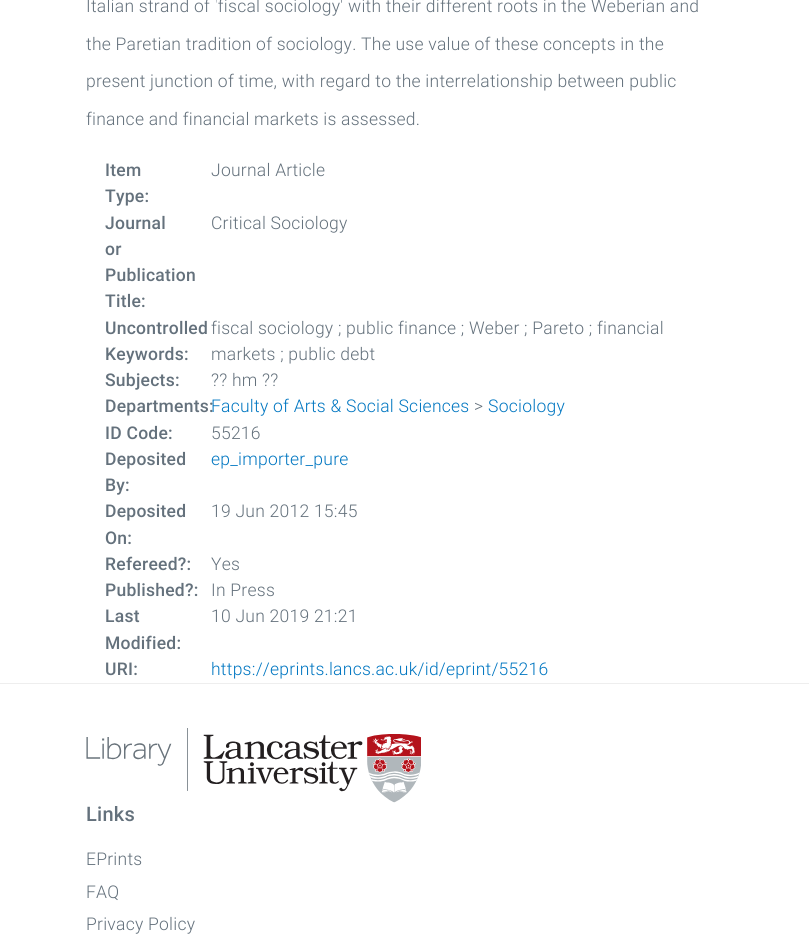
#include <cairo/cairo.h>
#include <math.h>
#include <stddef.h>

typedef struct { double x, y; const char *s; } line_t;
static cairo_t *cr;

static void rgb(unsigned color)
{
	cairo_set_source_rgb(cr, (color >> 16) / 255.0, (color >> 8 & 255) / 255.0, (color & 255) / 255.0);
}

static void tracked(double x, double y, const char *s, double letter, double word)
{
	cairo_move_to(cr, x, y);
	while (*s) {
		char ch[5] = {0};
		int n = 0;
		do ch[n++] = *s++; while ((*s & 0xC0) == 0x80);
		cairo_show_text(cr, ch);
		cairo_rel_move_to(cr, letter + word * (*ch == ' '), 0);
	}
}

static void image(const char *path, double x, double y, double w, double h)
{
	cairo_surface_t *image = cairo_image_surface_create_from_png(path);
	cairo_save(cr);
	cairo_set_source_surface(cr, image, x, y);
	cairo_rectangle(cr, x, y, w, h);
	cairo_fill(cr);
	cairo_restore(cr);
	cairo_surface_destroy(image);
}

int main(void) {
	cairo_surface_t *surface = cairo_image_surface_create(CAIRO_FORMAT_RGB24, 809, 934);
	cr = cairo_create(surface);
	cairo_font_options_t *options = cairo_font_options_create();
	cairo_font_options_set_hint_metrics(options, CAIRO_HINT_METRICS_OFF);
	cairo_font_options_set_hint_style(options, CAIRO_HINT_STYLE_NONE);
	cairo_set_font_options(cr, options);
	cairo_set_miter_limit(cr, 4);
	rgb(0xffffff);
	cairo_paint(cr);
	rgb(0xeeeeee);
	cairo_rectangle(cr, 0, 683, 809, 1);
	cairo_fill(cr);
	image("img/1.png", 86, 728, 335, 75);
	cairo_select_font_face(cr, "Roboto Light", CAIRO_FONT_SLANT_NORMAL, CAIRO_FONT_WEIGHT_NORMAL);
	cairo_set_font_size(cr, 17.5);
	rgb(0x64717c);
	{
		static const line_t items[] = {
			{86, 12, "Italian strand of 'fiscal sociology' with their different roots in the Weberian and"},
			{86, 50, "the Paretian tradition of sociology. The use value of these concepts in the"},
			{86, 87, "present junction of time, with regard to the interrelationship between public"},
			{86, 125, "finance and financial markets is assessed."},
		};
		for (size_t i = 0; i < sizeof items / sizeof *items; i++) {
			tracked(items[i].x, items[i].y, items[i].s, 0.25, 0);
		}
	}
	cairo_select_font_face(cr, "Roboto Medium", CAIRO_FONT_SLANT_NORMAL, CAIRO_FONT_WEIGHT_NORMAL);
	tracked(105, 176, "Item", 0.25, 0);
	tracked(105, 202, "Type:", 0.25, 0);
	cairo_select_font_face(cr, "Roboto Light", CAIRO_FONT_SLANT_NORMAL, CAIRO_FONT_WEIGHT_NORMAL);
	tracked(211, 176, "Journal Article", 0.25, 0);
	cairo_select_font_face(cr, "Roboto Medium", CAIRO_FONT_SLANT_NORMAL, CAIRO_FONT_WEIGHT_NORMAL);
	{
		static const line_t items[] = {
			{105, 229, "Journal"},
			{105, 255, "or"},
			{105, 281, "Publication"},
			{105, 307, "Title:"},
		};
		for (size_t i = 0; i < sizeof items / sizeof *items; i++) {
			tracked(items[i].x, items[i].y, items[i].s, 0.25, 0);
		}
	}
	cairo_select_font_face(cr, "Roboto Light", CAIRO_FONT_SLANT_NORMAL, CAIRO_FONT_WEIGHT_NORMAL);
	tracked(211, 229, "Critical Sociology", 0.25, 0);
	cairo_select_font_face(cr, "Roboto Medium", CAIRO_FONT_SLANT_NORMAL, CAIRO_FONT_WEIGHT_NORMAL);
	tracked(105, 334, "Uncontrolled", 0.25, 0);
	tracked(105, 360, "Keywords:", 0.25, 0);
	cairo_select_font_face(cr, "Roboto Light", CAIRO_FONT_SLANT_NORMAL, CAIRO_FONT_WEIGHT_NORMAL);
	tracked(211, 334, "fiscal sociology ; public finance ; Weber ; Pareto ; financial", 0.25, 0);
	tracked(211, 360, "markets ; public debt", 0.25, 0);
	cairo_select_font_face(cr, "Roboto Medium", CAIRO_FONT_SLANT_NORMAL, CAIRO_FONT_WEIGHT_NORMAL);
	tracked(105, 386, "Subjects:", 0.25, 0);
	cairo_select_font_face(cr, "Roboto Light", CAIRO_FONT_SLANT_NORMAL, CAIRO_FONT_WEIGHT_NORMAL);
	tracked(211, 386, "?\077 hm ?\077", 0.25, 0);
	cairo_select_font_face(cr, "Roboto Medium", CAIRO_FONT_SLANT_NORMAL, CAIRO_FONT_WEIGHT_NORMAL);
	tracked(105, 412, "Departments:", 0.25, 0);
	cairo_select_font_face(cr, "Roboto Light", CAIRO_FONT_SLANT_NORMAL, CAIRO_FONT_WEIGHT_NORMAL);
	rgb(0x0076c1);
	tracked(211, 412, "Faculty of Arts & Social Sciences", 0.25, 0);
	rgb(0x64717c);
	tracked(474, 412, ">", 0.25, 0);
	rgb(0x0076c1);
	tracked(488, 412, "Sociology", 0.25, 0);
	cairo_select_font_face(cr, "Roboto Medium", CAIRO_FONT_SLANT_NORMAL, CAIRO_FONT_WEIGHT_NORMAL);
	rgb(0x64717c);
	tracked(105, 439, "ID Code:", 0.25, 0);
	cairo_select_font_face(cr, "Roboto Light", CAIRO_FONT_SLANT_NORMAL, CAIRO_FONT_WEIGHT_NORMAL);
	tracked(211, 439, "55216", 0.25, 0);
	cairo_select_font_face(cr, "Roboto Medium", CAIRO_FONT_SLANT_NORMAL, CAIRO_FONT_WEIGHT_NORMAL);
	tracked(105, 465, "Deposited", 0.25, 0);
	tracked(105, 491, "By:", 0.25, 0);
	cairo_select_font_face(cr, "Roboto Light", CAIRO_FONT_SLANT_NORMAL, CAIRO_FONT_WEIGHT_NORMAL);
	rgb(0x0076c1);
	tracked(211, 465, "ep_importer_pure", 0.25, 0);
	cairo_select_font_face(cr, "Roboto Medium", CAIRO_FONT_SLANT_NORMAL, CAIRO_FONT_WEIGHT_NORMAL);
	rgb(0x64717c);
	tracked(105, 517, "Deposited", 0.25, 0);
	tracked(105, 544, "On:", 0.25, 0);
	cairo_select_font_face(cr, "Roboto Light", CAIRO_FONT_SLANT_NORMAL, CAIRO_FONT_WEIGHT_NORMAL);
	tracked(211, 517, "19 Jun 2012 15:45", 0.25, 0);
	cairo_select_font_face(cr, "Roboto Medium", CAIRO_FONT_SLANT_NORMAL, CAIRO_FONT_WEIGHT_NORMAL);
	tracked(105, 570, "Refereed?:", 0.25, 0);
	cairo_select_font_face(cr, "Roboto Light", CAIRO_FONT_SLANT_NORMAL, CAIRO_FONT_WEIGHT_NORMAL);
	tracked(211, 570, "Yes", 0.25, 0);
	cairo_select_font_face(cr, "Roboto Medium", CAIRO_FONT_SLANT_NORMAL, CAIRO_FONT_WEIGHT_NORMAL);
	tracked(105, 596, "Published?:", 0.25, 0);
	cairo_select_font_face(cr, "Roboto Light", CAIRO_FONT_SLANT_NORMAL, CAIRO_FONT_WEIGHT_NORMAL);
	tracked(211, 596, "In Press", 0.25, 0);
	cairo_select_font_face(cr, "Roboto Medium", CAIRO_FONT_SLANT_NORMAL, CAIRO_FONT_WEIGHT_NORMAL);
	tracked(105, 622, "Last", 0.25, 0);
	tracked(105, 649, "Modified:", 0.25, 0);
	cairo_select_font_face(cr, "Roboto Light", CAIRO_FONT_SLANT_NORMAL, CAIRO_FONT_WEIGHT_NORMAL);
	tracked(211, 622, "10 Jun 2019 21:21", 0.25, 0);
	cairo_select_font_face(cr, "Roboto Medium", CAIRO_FONT_SLANT_NORMAL, CAIRO_FONT_WEIGHT_NORMAL);
	tracked(105, 675, "URI:", 0.25, 0);
	cairo_select_font_face(cr, "Roboto Light", CAIRO_FONT_SLANT_NORMAL, CAIRO_FONT_WEIGHT_NORMAL);
	rgb(0x0076c1);
	tracked(211, 675, "https://eprints.lancs.ac.uk/id/eprint/55216", 0.25, 0);
	cairo_select_font_face(cr, "Roboto Medium", CAIRO_FONT_SLANT_NORMAL, CAIRO_FONT_WEIGHT_NORMAL);
	cairo_set_font_size(cr, 20);
	rgb(0x64717c);
	tracked(86, 821, "Links", 0.25, 0);
	cairo_select_font_face(cr, "Roboto Light", CAIRO_FONT_SLANT_NORMAL, CAIRO_FONT_WEIGHT_NORMAL);
	cairo_set_font_size(cr, 17.5);
	{
		static const line_t items[] = {
			{86, 865, "EPrints"},
			{86, 898, "FAQ"},
			{86, 930, "Privacy Policy"},
		};
		for (size_t i = 0; i < sizeof items / sizeof *items; i++) {
			tracked(items[i].x, items[i].y, items[i].s, 0.25, 0);
		}
	}
	cairo_surface_write_to_png(surface, "page.png");
	cairo_font_options_destroy(options);
	cairo_destroy(cr);
	cairo_surface_destroy(surface);
	return 0;
}
